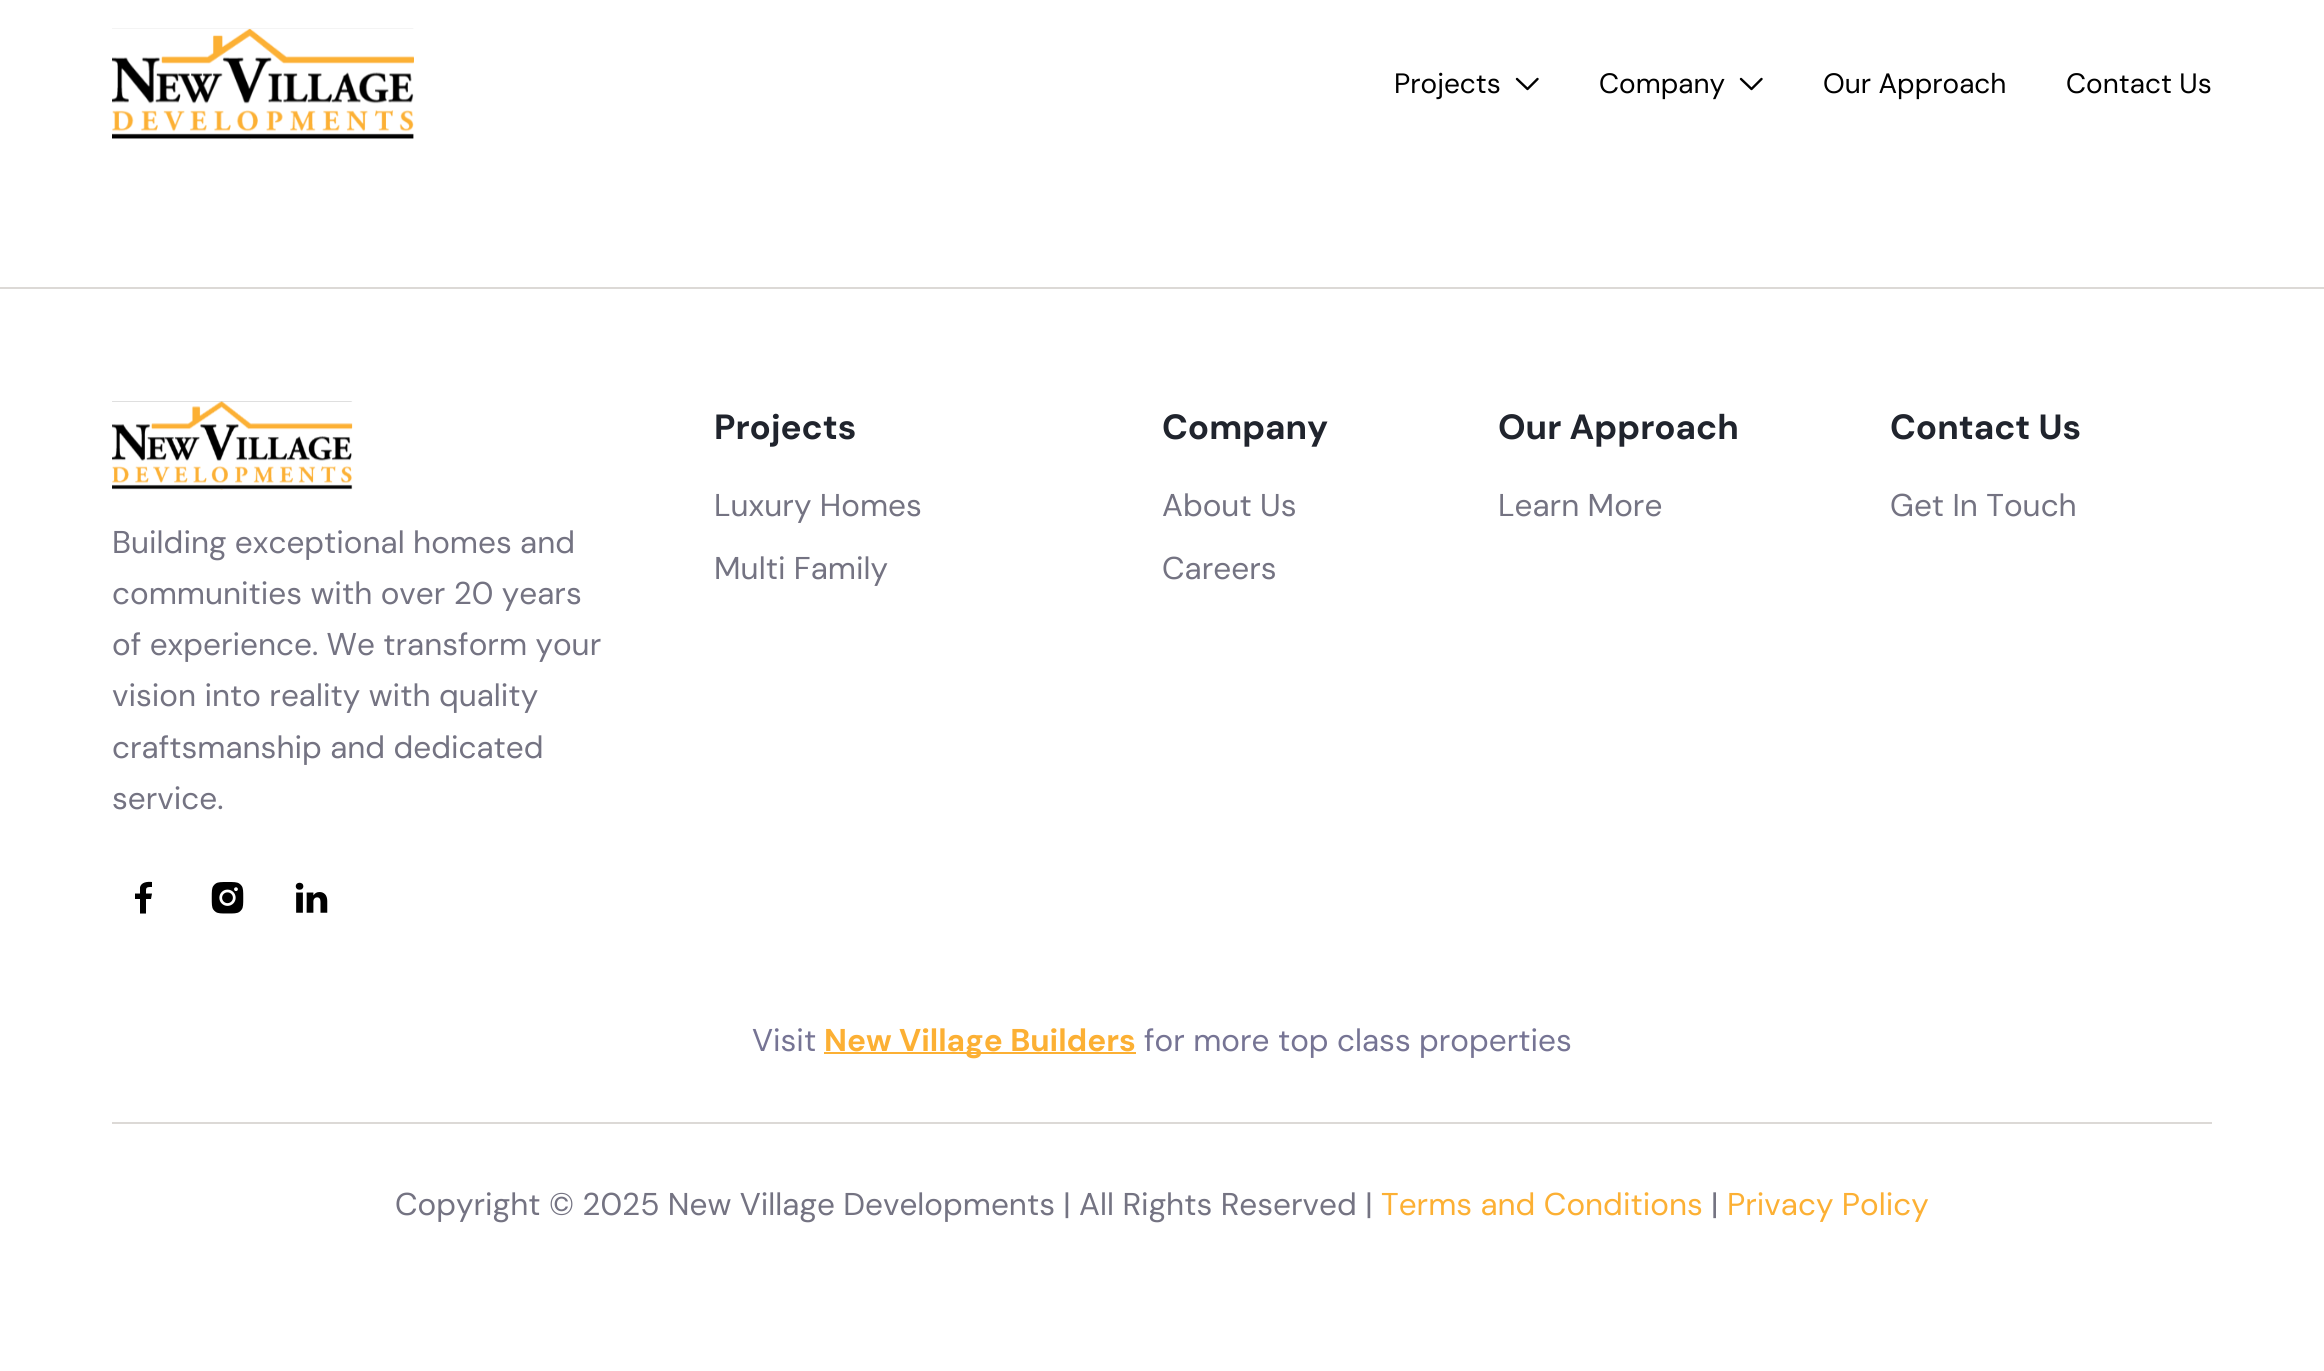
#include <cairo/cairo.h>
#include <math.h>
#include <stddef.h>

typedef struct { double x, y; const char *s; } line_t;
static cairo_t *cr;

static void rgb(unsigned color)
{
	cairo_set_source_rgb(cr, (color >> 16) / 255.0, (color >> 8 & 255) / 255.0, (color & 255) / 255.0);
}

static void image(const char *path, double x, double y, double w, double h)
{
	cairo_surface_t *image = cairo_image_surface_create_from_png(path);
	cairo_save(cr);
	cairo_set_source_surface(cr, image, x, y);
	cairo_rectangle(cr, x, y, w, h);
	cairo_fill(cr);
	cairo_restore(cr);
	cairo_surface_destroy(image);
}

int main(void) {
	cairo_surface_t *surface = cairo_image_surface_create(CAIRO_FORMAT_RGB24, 2324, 1371);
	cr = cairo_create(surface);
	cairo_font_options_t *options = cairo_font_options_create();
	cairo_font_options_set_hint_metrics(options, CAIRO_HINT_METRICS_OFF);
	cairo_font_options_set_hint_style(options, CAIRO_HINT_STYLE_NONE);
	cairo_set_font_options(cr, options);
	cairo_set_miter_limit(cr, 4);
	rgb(0xffffff);
	cairo_paint(cr);
	image("img/1.png", 112, 28, 302, 112);
	cairo_new_path(cr);
	cairo_move_to(cr, 1517, 79);
	cairo_line_to(cr, 1527.5, 89);
	cairo_line_to(cr, 1537.5, 79);
	rgb(0x000000);
	cairo_set_line_width(cr, 2.4);
	cairo_set_line_cap(cr, CAIRO_LINE_CAP_ROUND);
	cairo_set_line_join(cr, CAIRO_LINE_JOIN_ROUND);
	cairo_stroke(cr);
	cairo_new_path(cr);
	cairo_move_to(cr, 1741, 79);
	cairo_line_to(cr, 1751.5, 89);
	cairo_line_to(cr, 1761.5, 79);
	cairo_stroke(cr);
	rgb(0xdcd9d6);
	cairo_rectangle(cr, 0, 287, 2324, 2);
	cairo_fill(cr);
	image("img/2.png", 112, 401, 241, 89);
	rgb(0x000000);
	cairo_new_path(cr);
	cairo_move_to(cr, 146, 913.5);
	cairo_line_to(cr, 146, 899);
	cairo_line_to(cr, 151, 899);
	cairo_line_to(cr, 152, 893.5);
	cairo_line_to(cr, 146, 893.5);
	cairo_curve_to(cr, 146, 887.5, 145.5, 887, 152, 887);
	cairo_line_to(cr, 152, 882);
	cairo_curve_to(cr, 147.5, 881.5, 141, 882, 140, 887.5);
	cairo_line_to(cr, 140, 893.5);
	cairo_line_to(cr, 135, 893.5);
	cairo_line_to(cr, 135, 899);
	cairo_line_to(cr, 140, 899);
	cairo_line_to(cr, 140, 913.5);
	cairo_close_path(cr);
	cairo_fill(cr);
	image("img/3.png", 211, 882, 33, 32);
	image("img/4.png", 295, 882, 33, 31);
	rgb(0xfcb034);
	cairo_rectangle(cr, 824, 1052, 312, 2);
	cairo_fill(cr);
	rgb(0xdcd9d6);
	cairo_rectangle(cr, 112, 1122, 2100, 2);
	cairo_fill(cr);
	cairo_select_font_face(cr, "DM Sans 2", CAIRO_FONT_SLANT_NORMAL, CAIRO_FONT_WEIGHT_NORMAL);
	cairo_set_font_size(cr, 28);
	rgb(0x000000);
	{
		static const line_t items[] = {
			{1394, 93, "Projects"},
			{1599, 93, "Company"},
			{1823, 93, "Our Approach"},
			{2066, 93, "Contact Us"},
		};
		for (size_t i = 0; i < sizeof items / sizeof *items; i++) {
			cairo_move_to(cr, items[i].x, items[i].y);
			cairo_show_text(cr, items[i].s);
		}
	}
	cairo_select_font_face(cr, "DM Sans", CAIRO_FONT_SLANT_NORMAL, CAIRO_FONT_WEIGHT_BOLD);
	cairo_set_font_size(cr, 35);
	rgb(0x20242d);
	cairo_move_to(cr, 714, 439);
	cairo_show_text(cr, "Projects");
	cairo_select_font_face(cr, "DM Sans", CAIRO_FONT_SLANT_NORMAL, CAIRO_FONT_WEIGHT_NORMAL);
	cairo_set_font_size(cr, 31.5);
	rgb(0x747382);
	cairo_move_to(cr, 714, 516);
	cairo_show_text(cr, "Luxury Homes");
	cairo_move_to(cr, 714, 579);
	cairo_show_text(cr, "Multi Family");
	cairo_select_font_face(cr, "DM Sans", CAIRO_FONT_SLANT_NORMAL, CAIRO_FONT_WEIGHT_BOLD);
	cairo_set_font_size(cr, 35);
	rgb(0x20242d);
	cairo_move_to(cr, 1162, 439);
	cairo_show_text(cr, "Company");
	cairo_select_font_face(cr, "DM Sans", CAIRO_FONT_SLANT_NORMAL, CAIRO_FONT_WEIGHT_NORMAL);
	cairo_set_font_size(cr, 31.5);
	rgb(0x747382);
	cairo_move_to(cr, 1162, 516);
	cairo_show_text(cr, "About Us");
	cairo_move_to(cr, 1162, 579);
	cairo_show_text(cr, "Careers");
	cairo_select_font_face(cr, "DM Sans", CAIRO_FONT_SLANT_NORMAL, CAIRO_FONT_WEIGHT_BOLD);
	cairo_set_font_size(cr, 35);
	rgb(0x20242d);
	cairo_move_to(cr, 1498, 439);
	cairo_show_text(cr, "Our Approach");
	cairo_select_font_face(cr, "DM Sans", CAIRO_FONT_SLANT_NORMAL, CAIRO_FONT_WEIGHT_NORMAL);
	cairo_set_font_size(cr, 31.5);
	rgb(0x747382);
	cairo_move_to(cr, 1498, 516);
	cairo_show_text(cr, "Learn More");
	cairo_select_font_face(cr, "DM Sans", CAIRO_FONT_SLANT_NORMAL, CAIRO_FONT_WEIGHT_BOLD);
	cairo_set_font_size(cr, 35);
	rgb(0x20242d);
	cairo_move_to(cr, 1890, 439);
	cairo_show_text(cr, "Contact Us");
	cairo_select_font_face(cr, "DM Sans", CAIRO_FONT_SLANT_NORMAL, CAIRO_FONT_WEIGHT_NORMAL);
	cairo_set_font_size(cr, 31.5);
	rgb(0x747382);
	{
		static const line_t items[] = {
			{1890, 516, "Get In Touch"},
			{112, 553, "Building exceptional homes and"},
			{112, 604, "communities with over 20 years"},
			{112, 655, "of experience. We transform your"},
			{112, 706, "vision into reality with quality"},
			{112, 758, "craftsmanship and dedicated"},
			{112, 809, "service."},
		};
		for (size_t i = 0; i < sizeof items / sizeof *items; i++) {
			cairo_move_to(cr, items[i].x, items[i].y);
			cairo_show_text(cr, items[i].s);
		}
	}
	rgb(0x767494);
	cairo_move_to(cr, 752, 1051);
	cairo_show_text(cr, "Visit");
	cairo_select_font_face(cr, "DM Sans 2", CAIRO_FONT_SLANT_NORMAL, CAIRO_FONT_WEIGHT_BOLD);
	rgb(0xfcb034);
	cairo_move_to(cr, 824, 1051);
	cairo_show_text(cr, "New Village Builders");
	cairo_select_font_face(cr, "DM Sans", CAIRO_FONT_SLANT_NORMAL, CAIRO_FONT_WEIGHT_NORMAL);
	rgb(0x767494);
	cairo_move_to(cr, 1144, 1051);
	cairo_show_text(cr, "for more top class properties");
	rgb(0x747382);
	cairo_move_to(cr, 395, 1215);
	cairo_show_text(cr, "Copyright © 2025 New Village Developments | All Rights Reserved |");
	rgb(0xfcb034);
	cairo_move_to(cr, 1381, 1215);
	cairo_show_text(cr, "Terms and Conditions");
	rgb(0x747382);
	cairo_move_to(cr, 1711, 1215);
	cairo_show_text(cr, "|");
	rgb(0xfcb034);
	cairo_move_to(cr, 1727, 1215);
	cairo_show_text(cr, "Privacy Policy");
	cairo_surface_write_to_png(surface, "page.png");
	cairo_font_options_destroy(options);
	cairo_destroy(cr);
	cairo_surface_destroy(surface);
	return 0;
}
